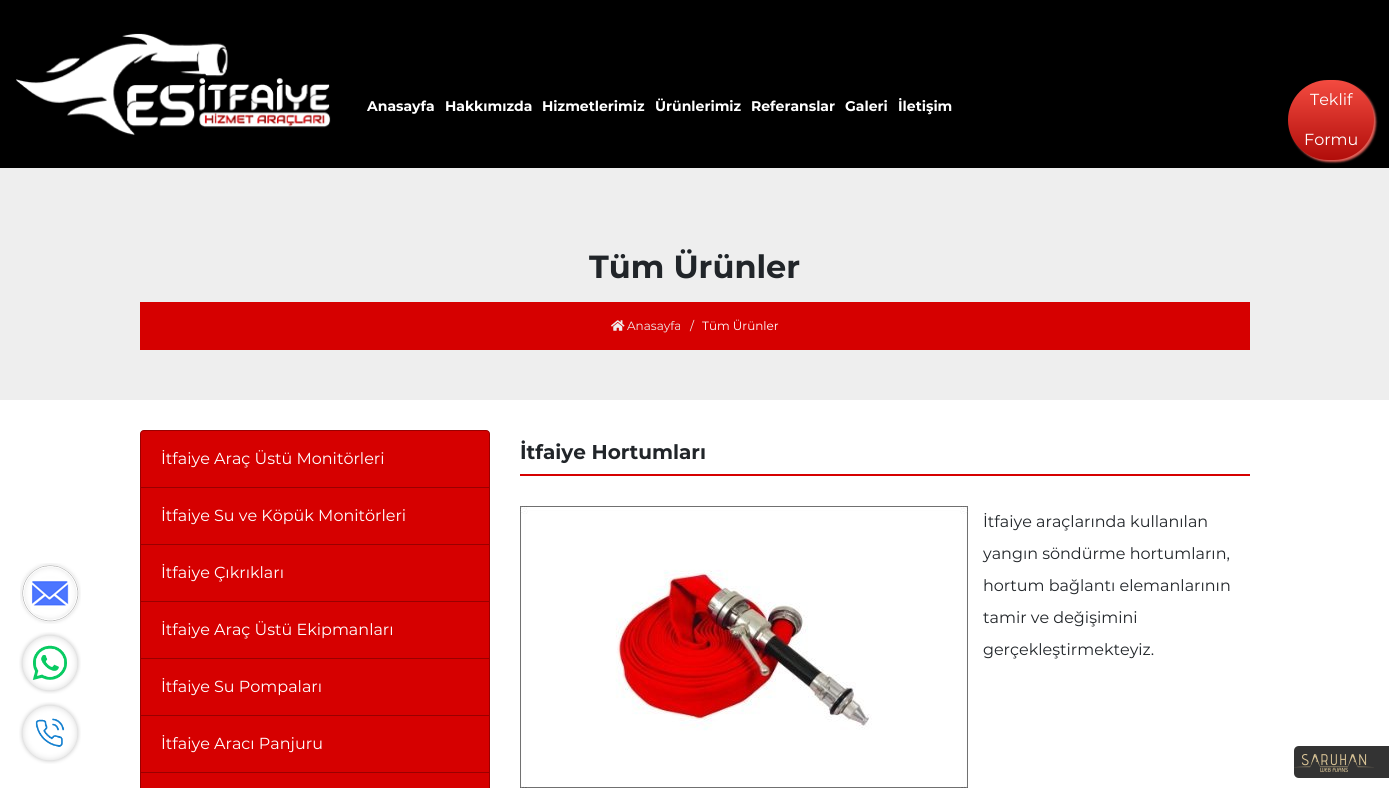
#include <cairo/cairo.h>
#include <math.h>
#include <stddef.h>

typedef struct { double x, y; const char *s; } line_t;
typedef struct { double x, y, w, h; unsigned color; } box_t;
static cairo_t *cr;

static void rgb(unsigned color)
{
	cairo_set_source_rgb(cr, (color >> 16) / 255.0, (color >> 8 & 255) / 255.0, (color & 255) / 255.0);
}

static void rrect(double x, double y, double w, double h, double r)
{
	cairo_new_sub_path(cr);
	cairo_arc(cr, x + w - r, y + h - r, r, 0, M_PI / 2);
	cairo_arc(cr, x + r, y + h - r, r, M_PI / 2, M_PI);
	cairo_arc(cr, x + r, y + r, r, M_PI, 1.5 * M_PI);
	cairo_arc(cr, x + w - r, y + r, r, 1.5 * M_PI, 2 * M_PI);
	cairo_close_path(cr);
}

static void soft_shadow(double x, double y, double w, double h, double r, double blur, double alpha)
{
	cairo_push_group_with_content(cr, CAIRO_CONTENT_ALPHA);
	cairo_set_operator(cr, CAIRO_OPERATOR_SOURCE);
	for (int i = 15; i >= -15 && fmin(w, h) + blur * i / 3 > 0; i -= 2) {
		double e = blur * i / 6;
		cairo_set_source_rgba(cr, 0, 0, 0, alpha * erfc((i - 1) / 8.5) / 2);
		rrect(x - e, y - e, w + 2 * e, h + 2 * e, fmax(0, fmin(r + e + blur * .6, fmin(w, h) / 2 + e)));
		cairo_fill(cr);
	}
	cairo_pattern_t *soft = cairo_pop_group(cr);
	cairo_mask(cr, soft);
	cairo_pattern_destroy(soft);
}

static void image(const char *path, double x, double y, double w, double h)
{
	cairo_surface_t *image = cairo_image_surface_create_from_png(path);
	cairo_save(cr);
	cairo_set_source_surface(cr, image, x, y);
	cairo_rectangle(cr, x, y, w, h);
	cairo_fill(cr);
	cairo_restore(cr);
	cairo_surface_destroy(image);
}

int main(void) {
	cairo_surface_t *surface = cairo_image_surface_create(CAIRO_FORMAT_RGB24, 1389, 788);
	cr = cairo_create(surface);
	cairo_font_options_t *options = cairo_font_options_create();
	cairo_font_options_set_hint_metrics(options, CAIRO_HINT_METRICS_OFF);
	cairo_font_options_set_hint_style(options, CAIRO_HINT_STYLE_NONE);
	cairo_set_font_options(cr, options);
	cairo_set_miter_limit(cr, 4);
	cairo_pattern_t *gradient;
	rgb(0xffffff);
	cairo_paint(cr);
	rgb(0x000000);
	cairo_rectangle(cr, 0, 0, 1389, 168);
	cairo_fill(cr);
	image("img/1.png", 16, 33, 315, 103);
	rgb(0xdf6058);
	soft_shadow(1290, 82, 86, 80, 40, 1, 1);
	gradient = cairo_pattern_create_linear(1331, 80, 1331, 160);
	cairo_pattern_add_color_stop_rgba(gradient, 0, 0.953, 0.294, 0.251, 1);
	cairo_pattern_add_color_stop_rgba(gradient, 1, 0.694, 0.051, 0.039, 1);
	cairo_set_source(cr, gradient);
	cairo_pattern_destroy(gradient);
	rrect(1288, 80, 86, 80, 40);
	cairo_fill(cr);
	rgb(0xeeeeee);
	cairo_rectangle(cr, 0, 168, 1389, 232);
	cairo_fill(cr);
	rgb(0xd60000);
	cairo_rectangle(cr, 140, 302, 1110, 48);
	cairo_fill(cr);
	image("img/2.png", 611, 320, 14, 11);
	image("img/3.png", 20, 563, 61, 61);
	cairo_new_path(cr);
	cairo_move_to(cr, 144, 430.5);
	cairo_line_to(cr, 486, 430.5);
	cairo_curve_to(cr, 488, 430.5, 489.5, 432, 489.5, 434);
	cairo_line_to(cr, 489.5, 487.5);
	cairo_line_to(cr, 140.5, 487.5);
	cairo_line_to(cr, 140.5, 434);
	cairo_curve_to(cr, 140.5, 432, 142, 430.5, 144, 430.5);
	cairo_close_path(cr);
	cairo_fill_preserve(cr);
	rgb(0x990000);
	cairo_set_line_width(cr, 1);
	cairo_stroke(cr);
	{
		static const box_t items[] = {
			{141, 488, 348, 56, 0xd60000},
			{489, 488, 1, 300, 0x990000},
			{140, 544, 350, 1, 0x990000},
			{140, 488, 1, 57, 0x990000},
			{141, 545, 348, 56, 0xd60000},
			{140, 601, 350, 1, 0x990000},
			{140, 545, 1, 57, 0x990000},
			{141, 602, 348, 56, 0xd60000},
			{140, 658, 350, 1, 0x990000},
			{140, 602, 1, 57, 0x990000},
			{141, 659, 348, 56, 0xd60000},
			{140, 715, 350, 1, 0x990000},
			{140, 659, 1, 57, 0x990000},
			{141, 716, 348, 56, 0xd60000},
			{140, 772, 350, 1, 0x990000},
			{140, 716, 1, 72, 0x990000},
			{141, 773, 348, 15, 0xd60000},
			{520, 474, 730, 2, 0xd60000},
		};
		for (size_t i = 0; i < sizeof items / sizeof *items; i++) {
			rgb(items[i].color);
			cairo_rectangle(cr, items[i].x, items[i].y, items[i].w, items[i].h);
			cairo_fill(cr);
		}
	}
	image("img/4.png", 520, 506, 448, 282);
	image("img/5.png", 19, 632, 62, 62);
	image("img/6.png", 19, 702, 62, 62);
	rgb(0x333333);
	cairo_new_path(cr);
	cairo_move_to(cr, 1299, 746);
	cairo_line_to(cr, 1389, 746);
	cairo_line_to(cr, 1389, 778);
	cairo_line_to(cr, 1299, 778);
	cairo_curve_to(cr, 1296, 778, 1294, 776, 1294, 773);
	cairo_line_to(cr, 1294, 751);
	cairo_curve_to(cr, 1294, 748, 1296, 746, 1299, 746);
	cairo_close_path(cr);
	cairo_fill(cr);
	image("img/7.png", 1294, 754, 80, 18);
	cairo_select_font_face(cr, "Montserrat", CAIRO_FONT_SLANT_NORMAL, CAIRO_FONT_WEIGHT_BOLD);
	cairo_set_font_size(cr, 14);
	rgb(0xffffff);
	{
		static const line_t items[] = {
			{367, 111, "Anasayfa"},
			{445, 111, "Hakkımızda"},
			{542, 111, "Hizmetlerimiz"},
			{655, 111, "Ürünlerimiz"},
			{751, 111, "Referanslar"},
			{845, 111, "Galeri"},
			{898, 111, "İletişim"},
		};
		for (size_t i = 0; i < sizeof items / sizeof *items; i++) {
			cairo_move_to(cr, items[i].x, items[i].y);
			cairo_show_text(cr, items[i].s);
		}
	}
	cairo_select_font_face(cr, "Montserrat", CAIRO_FONT_SLANT_NORMAL, CAIRO_FONT_WEIGHT_NORMAL);
	cairo_set_font_size(cr, 16);
	cairo_move_to(cr, 1310, 105);
	cairo_show_text(cr, "Teklif");
	cairo_move_to(cr, 1304, 145);
	cairo_show_text(cr, "Formu");
	cairo_select_font_face(cr, "Montserrat", CAIRO_FONT_SLANT_NORMAL, CAIRO_FONT_WEIGHT_BOLD);
	cairo_set_font_size(cr, 32);
	rgb(0x212529);
	cairo_move_to(cr, 589, 278);
	cairo_show_text(cr, "Tüm Ürünler");
	cairo_select_font_face(cr, "Montserrat", CAIRO_FONT_SLANT_NORMAL, CAIRO_FONT_WEIGHT_NORMAL);
	cairo_set_font_size(cr, 12);
	rgb(0xeeeeee);
	cairo_move_to(cr, 627, 330);
	cairo_show_text(cr, "Anasayfa");
	cairo_move_to(cr, 690, 330);
	cairo_show_text(cr, "/");
	rgb(0xffffff);
	cairo_move_to(cr, 702, 330);
	cairo_show_text(cr, "Tüm Ürünler");
	cairo_set_font_size(cr, 16);
	{
		static const line_t items[] = {
			{161, 464, "İtfaiye Araç Üstü Monitörleri"},
			{161, 521, "İtfaiye Su ve Köpük Monitörleri"},
			{161, 578, "İtfaiye Çıkrıkları"},
			{161, 635, "İtfaiye Araç Üstü Ekipmanları"},
			{161, 692, "İtfaiye Su Pompaları"},
			{161, 749, "İtfaiye Aracı Panjuru"},
		};
		for (size_t i = 0; i < sizeof items / sizeof *items; i++) {
			cairo_move_to(cr, items[i].x, items[i].y);
			cairo_show_text(cr, items[i].s);
		}
	}
	cairo_select_font_face(cr, "Montserrat", CAIRO_FONT_SLANT_NORMAL, CAIRO_FONT_WEIGHT_BOLD);
	cairo_set_font_size(cr, 20);
	rgb(0x212529);
	cairo_move_to(cr, 520, 459);
	cairo_show_text(cr, "İtfaiye Hortumları");
	cairo_select_font_face(cr, "Montserrat", CAIRO_FONT_SLANT_NORMAL, CAIRO_FONT_WEIGHT_NORMAL);
	cairo_set_font_size(cr, 16);
	{
		static const line_t items[] = {
			{983, 527, "İtfaiye araçlarında kullanılan"},
			{983, 559, "yangın söndürme hortumların,"},
			{983, 591, "hortum bağlantı elemanlarının"},
			{983, 623, "tamir ve değişimini"},
			{983, 655, "gerçekleştirmekteyiz."},
		};
		for (size_t i = 0; i < sizeof items / sizeof *items; i++) {
			cairo_move_to(cr, items[i].x, items[i].y);
			cairo_show_text(cr, items[i].s);
		}
	}
	cairo_surface_write_to_png(surface, "page.png");
	cairo_font_options_destroy(options);
	cairo_destroy(cr);
	cairo_surface_destroy(surface);
	return 0;
}
